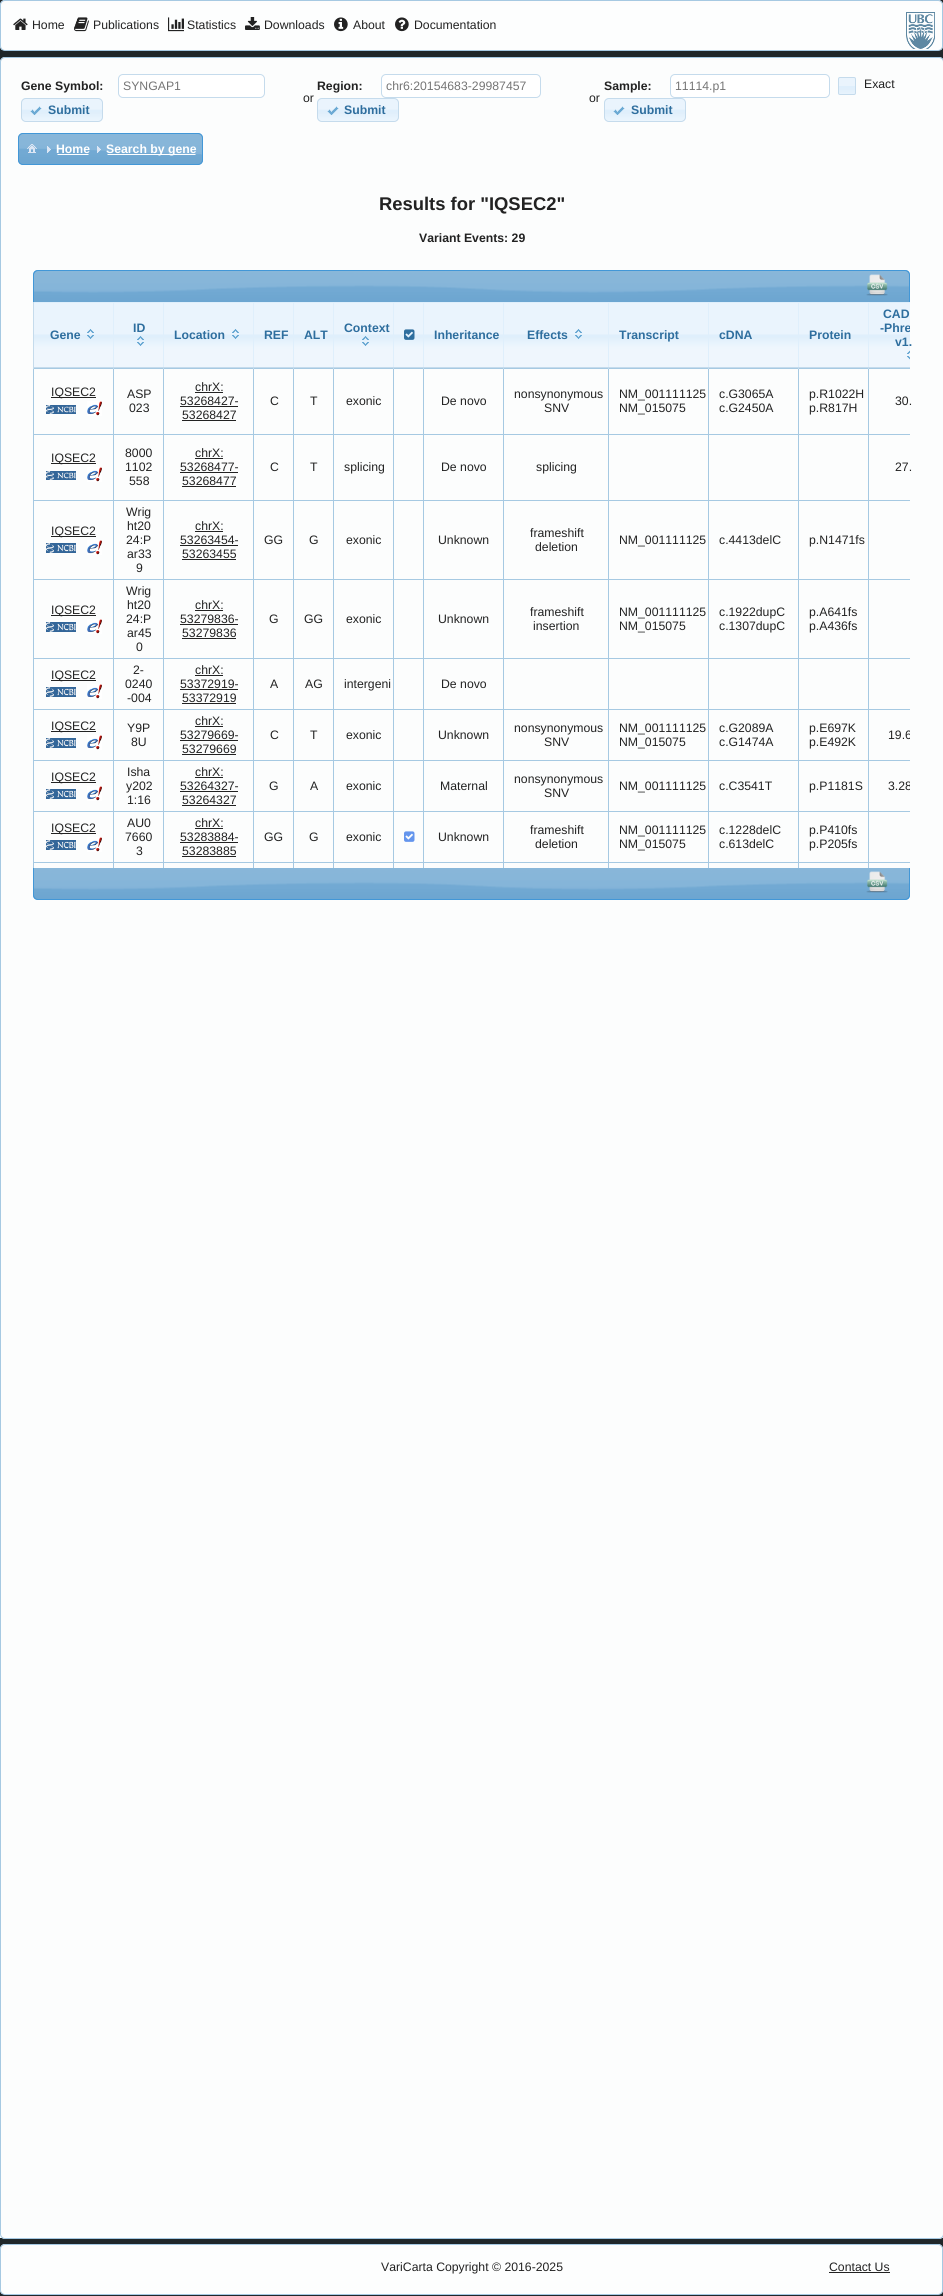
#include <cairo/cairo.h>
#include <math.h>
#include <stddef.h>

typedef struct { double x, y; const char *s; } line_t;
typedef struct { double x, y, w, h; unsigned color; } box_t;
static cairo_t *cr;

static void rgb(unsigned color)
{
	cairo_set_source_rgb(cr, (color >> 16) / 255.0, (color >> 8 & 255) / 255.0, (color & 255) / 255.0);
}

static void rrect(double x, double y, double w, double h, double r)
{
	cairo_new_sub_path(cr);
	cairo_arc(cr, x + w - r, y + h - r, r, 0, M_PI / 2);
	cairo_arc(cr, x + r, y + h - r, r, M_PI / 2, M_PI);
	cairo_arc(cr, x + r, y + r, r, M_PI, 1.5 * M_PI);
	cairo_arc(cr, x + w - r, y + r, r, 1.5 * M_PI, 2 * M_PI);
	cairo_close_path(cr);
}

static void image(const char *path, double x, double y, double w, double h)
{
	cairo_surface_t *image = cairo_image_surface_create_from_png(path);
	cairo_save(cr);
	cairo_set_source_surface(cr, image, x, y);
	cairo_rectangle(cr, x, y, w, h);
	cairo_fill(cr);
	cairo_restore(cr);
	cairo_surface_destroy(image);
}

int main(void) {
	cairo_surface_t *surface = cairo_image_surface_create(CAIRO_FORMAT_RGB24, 943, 2296);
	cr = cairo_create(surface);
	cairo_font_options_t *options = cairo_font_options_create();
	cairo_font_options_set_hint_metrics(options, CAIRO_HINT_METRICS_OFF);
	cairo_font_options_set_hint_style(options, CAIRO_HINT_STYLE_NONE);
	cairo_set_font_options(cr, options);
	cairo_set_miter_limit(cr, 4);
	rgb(0x20272a);
	cairo_paint(cr);
	image("img/1.png", 0, 0, 943, 50);
	rrect(0.5, 0.5, 942, 50, 4.5);
	rgb(0xa6c9e2);
	cairo_set_line_width(cr, 1);
	cairo_stroke(cr);
	image("img/2.png", 13, 18, 15, 12);
	image("img/3.png", 74, 17, 15, 15);
	image("img/4.png", 168, 17, 16, 15);
	image("img/5.png", 245, 17, 15, 13);
	image("img/6.png", 334, 17, 14, 15);
	image("img/7.png", 395, 17, 14, 15);
	image("img/8.png", 906, 12, 29, 37);
	rgb(0xfcfdfd);
	rrect(0, 57, 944, 2182, 5);
	cairo_fill(cr);
	rgb(0xfdfefe);
	cairo_rectangle(cr, 0, 2234, 943, 4);
	cairo_fill(cr);
	rrect(0.5, 57.5, 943, 2181, 4.5);
	rgb(0xa6c9e2);
	cairo_stroke(cr);
	rgb(0xffffff);
	rrect(118.5, 74.5, 146, 23, 4.5);
	cairo_fill_preserve(cr);
	rgb(0xc5dbec);
	cairo_stroke(cr);
	image("img/9.png", 21, 98, 82, 24);
	rrect(21.5, 98.5, 81, 23, 4.5);
	cairo_stroke(cr);
	image("img/10.png", 30, 106, 12, 9);
	rgb(0xffffff);
	rrect(381.5, 74.5, 159, 23, 4.5);
	cairo_fill_preserve(cr);
	rgb(0xc5dbec);
	cairo_stroke(cr);
	image("img/11.png", 317, 98, 82, 24);
	rrect(317.5, 98.5, 81, 23, 4.5);
	cairo_stroke(cr);
	image("img/10.png", 327, 106, 12, 9);
	rgb(0xffffff);
	rrect(670.5, 74.5, 159, 23, 4.5);
	cairo_fill_preserve(cr);
	rgb(0xc5dbec);
	cairo_stroke(cr);
	image("img/12.png", 838, 77, 18, 18);
	rrect(838.5, 77.5, 17, 17, 1.5);
	cairo_stroke(cr);
	image("img/11.png", 604, 98, 82, 24);
	rrect(604.5, 98.5, 81, 23, 4.5);
	cairo_stroke(cr);
	image("img/10.png", 613, 106, 12, 9);
	image("img/13.png", 18, 133, 185, 32);
	rrect(18.5, 133.5, 184, 31, 4.5);
	rgb(0x4297d7);
	cairo_stroke(cr);
	image("img/14.png", 27, 144, 10, 9);
	image("img/15.png", 27, 144, 10, 6);
	image("img/16.png", 47, 146, 4, 7);
	cairo_save(cr);
	rrect(56, 142, 34, 14, 5);
	cairo_clip(cr);
	rgb(0xffffff);
	cairo_rectangle(cr, 56, 154, 34, 1);
	cairo_fill(cr);
	cairo_restore(cr);
	image("img/17.png", 97, 146, 4, 7);
	cairo_save(cr);
	rrect(106, 142, 91, 14, 5);
	cairo_clip(cr);
	rgb(0xffffff);
	cairo_rectangle(cr, 106, 154, 91, 1);
	cairo_fill(cr);
	cairo_restore(cr);
	image("img/18.png", 33, 270, 877, 32);
	cairo_set_fill_rule(cr, CAIRO_FILL_RULE_EVEN_ODD);
	cairo_new_path(cr);
	cairo_move_to(cr, 38, 270);
	cairo_line_to(cr, 905, 270);
	cairo_curve_to(cr, 908, 270, 910, 272, 910, 275);
	cairo_line_to(cr, 910, 302);
	cairo_line_to(cr, 33, 302);
	cairo_line_to(cr, 33, 275);
	cairo_curve_to(cr, 33, 272, 35, 270, 38, 270);
	cairo_close_path(cr);
	cairo_move_to(cr, 38, 271);
	cairo_line_to(cr, 905, 271);
	cairo_curve_to(cr, 907, 271, 909, 273, 909, 275);
	cairo_line_to(cr, 909, 302);
	cairo_line_to(cr, 34, 302);
	cairo_line_to(cr, 34, 275);
	cairo_curve_to(cr, 34, 273, 36, 271, 38, 271);
	cairo_close_path(cr);
	cairo_fill(cr);
	image("img/19.png", 866, 274, 22, 22);
	rgb(0xdfeffc);
	cairo_rectangle(cr, 34, 302, 835, 65);
	cairo_fill(cr);
	image("img/20.png", 114, 303, 49, 64);
	image("img/21.png", 137, 336, 7, 10);
	image("img/22.png", 334, 303, 59, 64);
	image("img/21.png", 362, 336, 7, 10);
	image("img/23.png", 394, 303, 29, 64);
	image("img/24.png", 404, 329, 11, 11);
	rgb(0xc5dbec);
	cairo_rectangle(cr, 33, 367, 877, 1);
	cairo_fill(cr);
	rgb(0xdfeffc);
	cairo_rectangle(cr, 869, 302, 41, 1);
	cairo_fill(cr);
	image("img/25.png", 869, 303, 41, 64);
	image("img/26.png", 907, 350, 3, 10);
	rgb(0xc5dbec);
	cairo_rectangle(cr, 33, 302, 1, 66);
	cairo_fill(cr);
	image("img/27.png", 34, 303, 79, 64);
	image("img/28.png", 87, 329, 7, 10);
	image("img/29.png", 164, 303, 89, 64);
	image("img/28.png", 232, 329, 7, 10);
	image("img/30.png", 254, 303, 39, 64);
	image("img/30.png", 294, 303, 39, 64);
	image("img/27.png", 424, 303, 79, 64);
	image("img/31.png", 504, 303, 104, 64);
	image("img/28.png", 575, 329, 7, 10);
	image("img/32.png", 609, 303, 99, 64);
	image("img/29.png", 709, 303, 89, 64);
	image("img/33.png", 799, 303, 69, 64);
	{
		static const box_t items[] = {
			{33, 368, 877, 1, 0xa6c9e2},
			{33, 368, 1, 500, 0xa6c9e2},
			{33, 368, 1, 1, 0xc5dbec},
			{33, 862, 877, 1, 0xa6c9e2},
			{33, 434, 877, 1, 0xa6c9e2},
			{33, 500, 877, 1, 0xa6c9e2},
			{33, 579, 877, 1, 0xa6c9e2},
			{33, 658, 877, 1, 0xa6c9e2},
			{33, 709, 877, 1, 0xa6c9e2},
			{33, 760, 877, 1, 0xa6c9e2},
			{33, 811, 877, 1, 0xa6c9e2},
			{113, 368, 1, 500, 0xa6c9e2},
			{113, 368, 1, 1, 0xc5dbec},
			{163, 368, 1, 500, 0xa6c9e2},
			{163, 368, 1, 1, 0xc5dbec},
			{253, 368, 1, 500, 0xa6c9e2},
			{253, 368, 1, 1, 0xc5dbec},
			{293, 368, 1, 500, 0xa6c9e2},
			{293, 368, 1, 1, 0xc5dbec},
			{333, 368, 1, 500, 0xa6c9e2},
			{333, 368, 1, 1, 0xc5dbec},
			{393, 368, 1, 500, 0xa6c9e2},
			{393, 368, 1, 1, 0xc5dbec},
			{423, 368, 1, 500, 0xa6c9e2},
			{423, 368, 1, 1, 0xc5dbec},
			{503, 368, 1, 500, 0xa6c9e2},
			{503, 368, 1, 1, 0xc5dbec},
			{608, 368, 1, 500, 0xa6c9e2},
			{608, 368, 1, 1, 0xc5dbec},
			{708, 368, 1, 500, 0xa6c9e2},
			{708, 368, 1, 1, 0xc5dbec},
			{798, 368, 1, 500, 0xa6c9e2},
			{798, 368, 1, 1, 0xc5dbec},
			{868, 368, 1, 500, 0xa6c9e2},
			{868, 368, 1, 1, 0xc5dbec},
			{51, 397, 45, 1, 0x222222},
		};
		for (size_t i = 0; i < sizeof items / sizeof *items; i++) {
			rgb(items[i].color);
			cairo_rectangle(cr, items[i].x, items[i].y, items[i].w, items[i].h);
			cairo_fill(cr);
		}
	}
	image("img/34.png", 46, 405, 30, 9);
	image("img/35.png", 87, 401, 15, 15);
	{
		static const box_t items[] = {
			{195, 392, 28, 1, 0x222222},
			{180, 406, 58, 1, 0x222222},
			{182, 420, 54, 1, 0x222222},
			{51, 463, 45, 1, 0x222222},
		};
		for (size_t i = 0; i < sizeof items / sizeof *items; i++) {
			rgb(items[i].color);
			cairo_rectangle(cr, items[i].x, items[i].y, items[i].w, items[i].h);
			cairo_fill(cr);
		}
	}
	image("img/34.png", 46, 471, 30, 9);
	image("img/35.png", 87, 467, 15, 15);
	{
		static const box_t items[] = {
			{195, 458, 28, 1, 0x222222},
			{180, 472, 58, 1, 0x222222},
			{182, 486, 54, 1, 0x222222},
			{51, 536, 45, 1, 0x222222},
		};
		for (size_t i = 0; i < sizeof items / sizeof *items; i++) {
			rgb(items[i].color);
			cairo_rectangle(cr, items[i].x, items[i].y, items[i].w, items[i].h);
			cairo_fill(cr);
		}
	}
	image("img/36.png", 46, 543, 30, 10);
	image("img/37.png", 87, 540, 15, 15);
	{
		static const box_t items[] = {
			{195, 531, 28, 1, 0x222222},
			{180, 545, 58, 1, 0x222222},
			{182, 559, 54, 1, 0x222222},
			{51, 615, 45, 1, 0x222222},
		};
		for (size_t i = 0; i < sizeof items / sizeof *items; i++) {
			rgb(items[i].color);
			cairo_rectangle(cr, items[i].x, items[i].y, items[i].w, items[i].h);
			cairo_fill(cr);
		}
	}
	image("img/36.png", 46, 622, 30, 10);
	image("img/35.png", 87, 619, 15, 15);
	{
		static const box_t items[] = {
			{195, 610, 28, 1, 0x222222},
			{180, 624, 58, 1, 0x222222},
			{182, 638, 54, 1, 0x222222},
			{51, 680, 45, 1, 0x222222},
		};
		for (size_t i = 0; i < sizeof items / sizeof *items; i++) {
			rgb(items[i].color);
			cairo_rectangle(cr, items[i].x, items[i].y, items[i].w, items[i].h);
			cairo_fill(cr);
		}
	}
	image("img/36.png", 46, 687, 30, 10);
	image("img/35.png", 87, 684, 15, 15);
	{
		static const box_t items[] = {
			{195, 675, 28, 1, 0x222222},
			{180, 689, 58, 1, 0x222222},
			{182, 703, 54, 1, 0x222222},
			{51, 731, 45, 1, 0x222222},
		};
		for (size_t i = 0; i < sizeof items / sizeof *items; i++) {
			rgb(items[i].color);
			cairo_rectangle(cr, items[i].x, items[i].y, items[i].w, items[i].h);
			cairo_fill(cr);
		}
	}
	image("img/36.png", 46, 738, 30, 10);
	image("img/35.png", 87, 735, 15, 15);
	{
		static const box_t items[] = {
			{195, 726, 28, 1, 0x222222},
			{180, 740, 58, 1, 0x222222},
			{182, 754, 54, 1, 0x222222},
			{51, 782, 45, 1, 0x222222},
		};
		for (size_t i = 0; i < sizeof items / sizeof *items; i++) {
			rgb(items[i].color);
			cairo_rectangle(cr, items[i].x, items[i].y, items[i].w, items[i].h);
			cairo_fill(cr);
		}
	}
	image("img/36.png", 46, 789, 30, 10);
	image("img/35.png", 87, 786, 15, 15);
	{
		static const box_t items[] = {
			{195, 777, 28, 1, 0x222222},
			{180, 791, 58, 1, 0x222222},
			{182, 805, 54, 1, 0x222222},
			{51, 833, 45, 1, 0x222222},
		};
		for (size_t i = 0; i < sizeof items / sizeof *items; i++) {
			rgb(items[i].color);
			cairo_rectangle(cr, items[i].x, items[i].y, items[i].w, items[i].h);
			cairo_fill(cr);
		}
	}
	image("img/36.png", 46, 840, 30, 10);
	image("img/35.png", 87, 837, 15, 15);
	{
		static const box_t items[] = {
			{195, 828, 28, 1, 0x222222},
			{180, 842, 58, 1, 0x222222},
			{182, 856, 54, 1, 0x222222},
		};
		for (size_t i = 0; i < sizeof items / sizeof *items; i++) {
			rgb(items[i].color);
			cairo_rectangle(cr, items[i].x, items[i].y, items[i].w, items[i].h);
			cairo_fill(cr);
		}
	}
	image("img/38.png", 404, 831, 11, 11);
	image("img/39.png", 33, 868, 877, 32);
	rgb(0x4297d7);
	cairo_new_path(cr);
	cairo_move_to(cr, 33, 868);
	cairo_line_to(cr, 910, 868);
	cairo_line_to(cr, 910, 895);
	cairo_curve_to(cr, 910, 898, 908, 900, 905, 900);
	cairo_line_to(cr, 38, 900);
	cairo_curve_to(cr, 35, 900, 33, 898, 33, 895);
	cairo_close_path(cr);
	cairo_move_to(cr, 34, 868);
	cairo_line_to(cr, 909, 868);
	cairo_line_to(cr, 909, 895);
	cairo_curve_to(cr, 909, 897, 907, 899, 905, 899);
	cairo_line_to(cr, 38, 899);
	cairo_curve_to(cr, 36, 899, 34, 897, 34, 895);
	cairo_close_path(cr);
	cairo_fill(cr);
	image("img/19.png", 866, 871, 22, 22);
	image("img/1.png", 0, 2244, 943, 50);
	rrect(0.5, 2244.5, 942, 50, 4.5);
	rgb(0xa6c9e2);
	cairo_stroke(cr);
	rgb(0x222222);
	cairo_rectangle(cr, 829, 2272, 61, 1);
	cairo_fill(cr);
	cairo_select_font_face(cr, "Liberation Sans", CAIRO_FONT_SLANT_NORMAL, CAIRO_FONT_WEIGHT_NORMAL);
	cairo_set_font_size(cr, 12.25);
	{
		static const line_t items[] = {
			{32, 29, "Home"},
			{93, 29, "Publications"},
			{187, 29, "Statistics"},
			{264, 29, "Downloads"},
			{353, 29, "About"},
			{414, 29, "Documentation"},
		};
		for (size_t i = 0; i < sizeof items / sizeof *items; i++) {
			cairo_move_to(cr, items[i].x, items[i].y);
			cairo_show_text(cr, items[i].s);
		}
	}
	cairo_select_font_face(cr, "Liberation Sans", CAIRO_FONT_SLANT_NORMAL, CAIRO_FONT_WEIGHT_BOLD);
	cairo_move_to(cr, 21, 90);
	cairo_show_text(cr, "Gene Symbol:");
	cairo_select_font_face(cr, "Liberation Sans", CAIRO_FONT_SLANT_NORMAL, CAIRO_FONT_WEIGHT_NORMAL);
	rgb(0x757575);
	cairo_move_to(cr, 123, 90);
	cairo_show_text(cr, "SYNGAP1");
	cairo_select_font_face(cr, "Liberation Sans", CAIRO_FONT_SLANT_NORMAL, CAIRO_FONT_WEIGHT_BOLD);
	rgb(0x2e6e9e);
	cairo_move_to(cr, 48, 114);
	cairo_show_text(cr, "Submit");
	cairo_select_font_face(cr, "Liberation Sans", CAIRO_FONT_SLANT_NORMAL, CAIRO_FONT_WEIGHT_NORMAL);
	rgb(0x222222);
	cairo_move_to(cr, 303, 102);
	cairo_show_text(cr, "or");
	cairo_select_font_face(cr, "Liberation Sans", CAIRO_FONT_SLANT_NORMAL, CAIRO_FONT_WEIGHT_BOLD);
	cairo_move_to(cr, 317, 90);
	cairo_show_text(cr, "Region:");
	cairo_select_font_face(cr, "Liberation Sans", CAIRO_FONT_SLANT_NORMAL, CAIRO_FONT_WEIGHT_NORMAL);
	rgb(0x757575);
	cairo_move_to(cr, 386, 90);
	cairo_show_text(cr, "chr6:20154683-29987457");
	cairo_select_font_face(cr, "Liberation Sans", CAIRO_FONT_SLANT_NORMAL, CAIRO_FONT_WEIGHT_BOLD);
	rgb(0x2e6e9e);
	cairo_move_to(cr, 344, 114);
	cairo_show_text(cr, "Submit");
	cairo_select_font_face(cr, "Liberation Sans", CAIRO_FONT_SLANT_NORMAL, CAIRO_FONT_WEIGHT_NORMAL);
	rgb(0x222222);
	cairo_move_to(cr, 589, 102);
	cairo_show_text(cr, "or");
	cairo_select_font_face(cr, "Liberation Sans", CAIRO_FONT_SLANT_NORMAL, CAIRO_FONT_WEIGHT_BOLD);
	cairo_move_to(cr, 604, 90);
	cairo_show_text(cr, "Sample:");
	cairo_select_font_face(cr, "Liberation Sans", CAIRO_FONT_SLANT_NORMAL, CAIRO_FONT_WEIGHT_NORMAL);
	rgb(0x757575);
	cairo_move_to(cr, 675, 90);
	cairo_show_text(cr, "11114.p1");
	rgb(0x222222);
	cairo_move_to(cr, 864, 88);
	cairo_show_text(cr, "Exact");
	cairo_select_font_face(cr, "Liberation Sans", CAIRO_FONT_SLANT_NORMAL, CAIRO_FONT_WEIGHT_BOLD);
	rgb(0x2e6e9e);
	cairo_move_to(cr, 631, 114);
	cairo_show_text(cr, "Submit");
	rgb(0xffffff);
	cairo_move_to(cr, 56, 153);
	cairo_show_text(cr, "Home");
	cairo_move_to(cr, 106, 153);
	cairo_show_text(cr, "Search by gene");
	cairo_set_font_size(cr, 18.4);
	rgb(0x222222);
	cairo_move_to(cr, 379, 210);
	cairo_show_text(cr, "Results for \"IQSEC2\"");
	cairo_set_font_size(cr, 12.25);
	cairo_move_to(cr, 419, 242);
	cairo_show_text(cr, "Variant Events: 29");
	rgb(0x2e6e9e);
	{
		static const line_t items[] = {
			{133, 332, "ID"},
			{344, 332, "Context"},
			{883, 318, "CAD"},
		};
		for (size_t i = 0; i < sizeof items / sizeof *items; i++) {
			cairo_move_to(cr, items[i].x, items[i].y);
			cairo_show_text(cr, items[i].s);
		}
	}
	cairo_save(cr);
	cairo_set_fill_rule(cr, CAIRO_FILL_RULE_WINDING);
	cairo_rectangle(cr, 870, 303, 40, 63);
	cairo_clip(cr);
	cairo_move_to(cr, 880, 332);
	cairo_show_text(cr, "-Phre");
	cairo_restore(cr);
	{
		static const line_t items[] = {
			{895, 346, "v1."},
			{50, 339, "Gene"},
			{174, 339, "Location"},
			{264, 339, "REF"},
			{304, 339, "ALT"},
			{434, 339, "Inheritance"},
			{527, 339, "Effects"},
			{619, 339, "Transcript"},
			{719, 339, "cDNA"},
			{809, 339, "Protein"},
		};
		for (size_t i = 0; i < sizeof items / sizeof *items; i++) {
			cairo_move_to(cr, items[i].x, items[i].y);
			cairo_show_text(cr, items[i].s);
		}
	}
	cairo_select_font_face(cr, "Liberation Sans", CAIRO_FONT_SLANT_NORMAL, CAIRO_FONT_WEIGHT_NORMAL);
	rgb(0x222222);
	{
		static const line_t items[] = {
			{51, 396, "IQSEC2"},
			{127, 398, "ASP"},
			{129, 412, "023"},
			{195, 391, "chrX:"},
			{180, 405, "53268427-"},
			{182, 419, "53268427"},
			{270, 405, "C"},
			{310, 405, "T"},
			{346, 405, "exonic"},
			{441, 405, "De novo"},
			{514, 398, "nonsynonymous"},
			{544, 412, "SNV"},
			{619, 398, "NM_001111125"},
			{619, 412, "NM_015075"},
			{719, 398, "c.G3065A"},
			{719, 412, "c.G2450A"},
			{809, 398, "p.R1022H"},
			{809, 412, "p.R817H"},
			{895, 405, "30."},
			{51, 462, "IQSEC2"},
			{125, 457, "8000"},
			{125, 471, "1102"},
			{129, 485, "558"},
			{195, 457, "chrX:"},
			{180, 471, "53268477-"},
			{182, 485, "53268477"},
			{270, 471, "C"},
			{310, 471, "T"},
			{344, 471, "splicing"},
			{441, 471, "De novo"},
			{536, 471, "splicing"},
			{895, 471, "27."},
			{51, 535, "IQSEC2"},
			{126, 516, "Wrig"},
			{127, 530, "ht20"},
			{126, 544, "24:P"},
			{127, 558, "ar33"},
			{136, 572, "9"},
			{195, 530, "chrX:"},
			{180, 544, "53263454-"},
			{182, 558, "53263455"},
			{264, 544, "GG"},
			{309, 544, "G"},
			{346, 544, "exonic"},
			{438, 544, "Unknown"},
			{530, 537, "frameshift"},
			{535, 551, "deletion"},
			{619, 544, "NM_001111125"},
			{719, 544, "c.4413delC"},
			{809, 544, "p.N1471fs"},
			{51, 614, "IQSEC2"},
			{126, 595, "Wrig"},
			{127, 609, "ht20"},
			{126, 623, "24:P"},
			{127, 637, "ar45"},
			{136, 651, "0"},
			{195, 609, "chrX:"},
			{180, 623, "53279836-"},
			{182, 637, "53279836"},
			{269, 623, "G"},
			{304, 623, "GG"},
			{346, 623, "exonic"},
			{438, 623, "Unknown"},
			{530, 616, "frameshift"},
			{533, 630, "insertion"},
			{619, 616, "NM_001111125"},
			{619, 630, "NM_015075"},
			{719, 616, "c.1922dupC"},
			{719, 630, "c.1307dupC"},
			{809, 616, "p.A641fs"},
			{809, 630, "p.A436fs"},
			{51, 679, "IQSEC2"},
			{133, 674, "2-"},
			{125, 688, "0240"},
			{127, 702, "-004"},
			{195, 674, "chrX:"},
			{180, 688, "53372919-"},
			{182, 702, "53372919"},
			{270, 688, "A"},
			{305, 688, "AG"},
			{344, 688, "intergeni"},
			{441, 688, "De novo"},
			{51, 730, "IQSEC2"},
			{127, 732, "Y9P"},
			{131, 746, "8U"},
			{195, 725, "chrX:"},
			{180, 739, "53279669-"},
			{182, 753, "53279669"},
			{270, 739, "C"},
			{310, 739, "T"},
			{346, 739, "exonic"},
			{438, 739, "Unknown"},
			{514, 732, "nonsynonymous"},
			{544, 746, "SNV"},
			{619, 732, "NM_001111125"},
			{619, 746, "NM_015075"},
			{719, 732, "c.G2089A"},
			{719, 746, "c.G1474A"},
			{809, 732, "p.E697K"},
			{809, 746, "p.E492K"},
		};
		for (size_t i = 0; i < sizeof items / sizeof *items; i++) {
			cairo_move_to(cr, items[i].x, items[i].y);
			cairo_show_text(cr, items[i].s);
		}
	}
	cairo_save(cr);
	cairo_set_fill_rule(cr, CAIRO_FILL_RULE_WINDING);
	cairo_rectangle(cr, 870, 710, 40, 49);
	cairo_clip(cr);
	cairo_move_to(cr, 888, 739);
	cairo_show_text(cr, "19.6");
	cairo_restore(cr);
	{
		static const line_t items[] = {
			{51, 781, "IQSEC2"},
			{127, 776, "Isha"},
			{126, 790, "y202"},
			{127, 804, "1:16"},
			{195, 776, "chrX:"},
			{180, 790, "53264327-"},
			{182, 804, "53264327"},
			{269, 790, "G"},
			{310, 790, "A"},
			{346, 790, "exonic"},
			{440, 790, "Maternal"},
			{514, 783, "nonsynonymous"},
			{544, 797, "SNV"},
			{619, 790, "NM_001111125"},
			{719, 790, "c.C3541T"},
			{809, 790, "p.P1181S"},
		};
		for (size_t i = 0; i < sizeof items / sizeof *items; i++) {
			cairo_move_to(cr, items[i].x, items[i].y);
			cairo_show_text(cr, items[i].s);
		}
	}
	cairo_save(cr);
	cairo_set_fill_rule(cr, CAIRO_FILL_RULE_WINDING);
	cairo_rectangle(cr, 870, 761, 40, 49);
	cairo_clip(cr);
	cairo_move_to(cr, 888, 790);
	cairo_show_text(cr, "3.28");
	cairo_restore(cr);
	{
		static const line_t items[] = {
			{51, 832, "IQSEC2"},
			{127, 827, "AU0"},
			{125, 841, "7660"},
			{136, 855, "3"},
			{195, 827, "chrX:"},
			{180, 841, "53283884-"},
			{182, 855, "53283885"},
			{264, 841, "GG"},
			{309, 841, "G"},
			{346, 841, "exonic"},
			{438, 841, "Unknown"},
			{530, 834, "frameshift"},
			{535, 848, "deletion"},
			{619, 834, "NM_001111125"},
			{619, 848, "NM_015075"},
			{719, 834, "c.1228delC"},
			{719, 848, "c.613delC"},
			{809, 834, "p.P410fs"},
			{809, 848, "p.P205fs"},
			{381, 2271, "VariCarta Copyright © 2016-2025"},
			{829, 2271, "Contact Us"},
		};
		for (size_t i = 0; i < sizeof items / sizeof *items; i++) {
			cairo_move_to(cr, items[i].x, items[i].y);
			cairo_show_text(cr, items[i].s);
		}
	}
	cairo_surface_write_to_png(surface, "page.png");
	cairo_font_options_destroy(options);
	cairo_destroy(cr);
	cairo_surface_destroy(surface);
	return 0;
}
